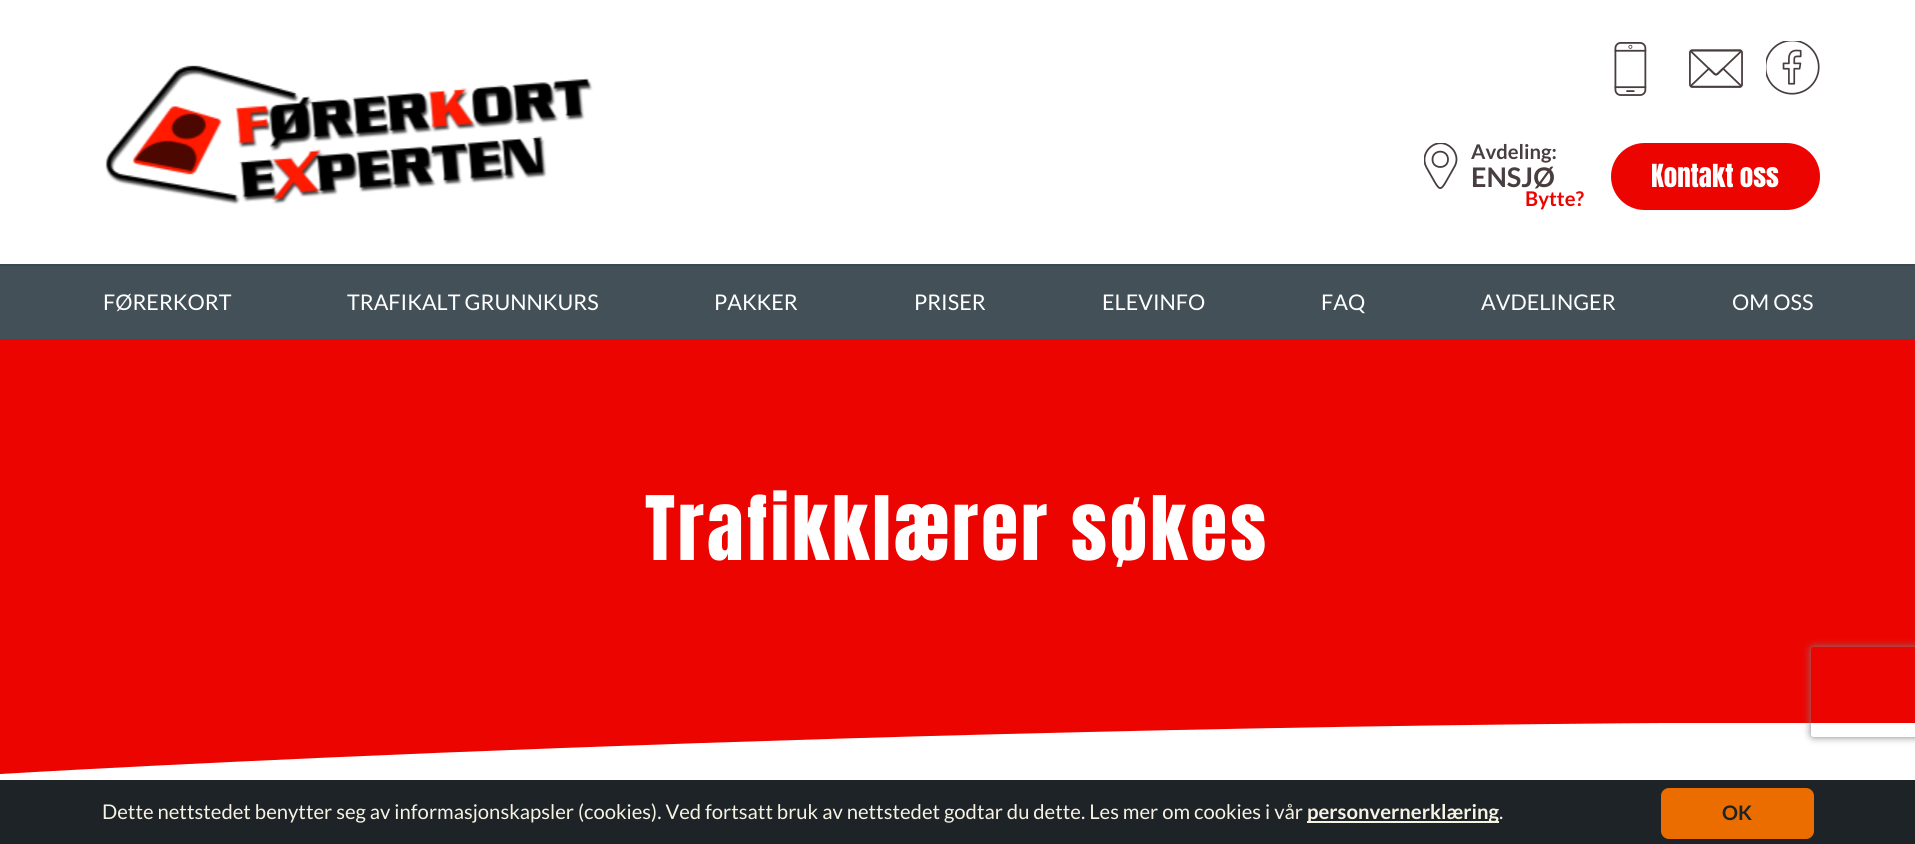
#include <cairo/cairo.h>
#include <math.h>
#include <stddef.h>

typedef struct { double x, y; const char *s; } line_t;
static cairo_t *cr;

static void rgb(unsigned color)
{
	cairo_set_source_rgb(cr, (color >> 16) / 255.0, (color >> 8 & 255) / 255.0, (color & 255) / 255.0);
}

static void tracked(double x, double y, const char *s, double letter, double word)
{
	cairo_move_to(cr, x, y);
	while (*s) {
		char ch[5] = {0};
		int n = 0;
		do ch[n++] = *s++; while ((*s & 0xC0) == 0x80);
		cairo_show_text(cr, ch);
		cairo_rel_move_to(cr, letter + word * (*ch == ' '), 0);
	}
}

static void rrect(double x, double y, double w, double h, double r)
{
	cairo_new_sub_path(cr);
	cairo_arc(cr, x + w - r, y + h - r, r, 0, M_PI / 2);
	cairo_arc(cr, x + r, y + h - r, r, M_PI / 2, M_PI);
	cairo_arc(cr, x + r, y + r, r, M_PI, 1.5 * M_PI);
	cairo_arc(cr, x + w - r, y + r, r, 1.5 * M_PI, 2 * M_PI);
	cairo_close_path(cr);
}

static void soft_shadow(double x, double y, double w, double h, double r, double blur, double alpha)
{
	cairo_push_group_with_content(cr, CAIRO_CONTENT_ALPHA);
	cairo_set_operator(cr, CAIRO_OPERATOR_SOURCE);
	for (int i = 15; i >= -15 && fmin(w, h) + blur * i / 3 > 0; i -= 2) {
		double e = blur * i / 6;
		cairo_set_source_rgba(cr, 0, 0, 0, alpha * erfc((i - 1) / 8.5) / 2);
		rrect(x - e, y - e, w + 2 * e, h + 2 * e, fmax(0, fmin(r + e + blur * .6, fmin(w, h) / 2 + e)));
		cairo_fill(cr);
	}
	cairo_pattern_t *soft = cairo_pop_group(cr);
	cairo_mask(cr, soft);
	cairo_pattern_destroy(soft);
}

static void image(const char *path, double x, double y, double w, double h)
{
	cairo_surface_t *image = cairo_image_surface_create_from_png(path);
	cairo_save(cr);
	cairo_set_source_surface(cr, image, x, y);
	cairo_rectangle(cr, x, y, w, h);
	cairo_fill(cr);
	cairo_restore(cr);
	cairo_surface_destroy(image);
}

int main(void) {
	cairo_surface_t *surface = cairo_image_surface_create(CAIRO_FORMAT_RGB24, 1915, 844);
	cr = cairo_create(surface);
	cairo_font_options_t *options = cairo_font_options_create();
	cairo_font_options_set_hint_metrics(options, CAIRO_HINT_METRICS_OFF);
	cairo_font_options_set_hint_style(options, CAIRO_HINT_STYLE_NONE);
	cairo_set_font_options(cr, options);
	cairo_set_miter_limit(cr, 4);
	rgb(0xffffff);
	cairo_paint(cr);
	rgb(0x3c484f);
	cairo_new_path(cr);
	cairo_move_to(cr, 0, 264);
	cairo_line_to(cr, 0, 266);
	cairo_line_to(cr, 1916, 266);
	cairo_line_to(cr, 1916, 2);
	cairo_line_to(cr, 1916, 264);
	cairo_close_path(cr);
	cairo_fill(cr);
	image("img/1.png", 105, 65, 488, 140);
	image("img/2.png", 1614, 42, 33, 54);
	image("img/3.png", 1689, 49, 54, 39);
	image("img/4.png", 1766, 41, 54, 54);
	cairo_new_path(cr);
	cairo_move_to(cr, 1448, 159.5);
	cairo_curve_to(cr, 1448, 169.5, 1432.5, 169.5, 1432.5, 159.5);
	cairo_curve_to(cr, 1432.5, 149, 1448, 149, 1448, 159.5);
	cairo_close_path(cr);
	rgb(0x483d3f);
	cairo_set_line_width(cr, 1.8);
	cairo_set_line_cap(cr, CAIRO_LINE_CAP_ROUND);
	cairo_set_line_join(cr, CAIRO_LINE_JOIN_ROUND);
	cairo_stroke(cr);
	cairo_save(cr);
	cairo_rectangle(cr, 1424, 143, 34, 48);
	cairo_clip(cr);
	cairo_new_path(cr);
	cairo_move_to(cr, 1456.5, 159.5);
	cairo_curve_to(cr, 1456.5, 155, 1454.5, 150.5, 1451, 147.5);
	cairo_curve_to(cr, 1437.5, 135, 1418, 152, 1426.5, 167.5);
	cairo_curve_to(cr, 1442.5, 195, 1438, 195, 1454, 167.5);
	cairo_curve_to(cr, 1455.5, 165, 1456.5, 162.5, 1456.5, 159.5);
	cairo_close_path(cr);
	cairo_stroke(cr);
	cairo_restore(cr);
	rgb(0xeb0400);
	rrect(1611, 143, 209, 67, 33.5);
	cairo_fill(cr);
	rgb(0x435058);
	cairo_rectangle(cr, 0, 266, 1915, 73);
	cairo_fill(cr);
	rgb(0xeb0400);
	cairo_rectangle(cr, 0, 339, 1915, 435);
	cairo_fill(cr);
	cairo_save(cr);
	cairo_rectangle(cr, 0, 723, 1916, 51);
	cairo_clip(cr);
	rgb(0xffffff);
	cairo_new_path(cr);
	cairo_move_to(cr, 0, 774);
	cairo_curve_to(cr, 0, 774, 858, 722, 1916, 722);
	cairo_line_to(cr, 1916, 774);
	cairo_close_path(cr);
	cairo_fill(cr);
	cairo_restore(cr);
	cairo_save(cr);
	cairo_set_fill_rule(cr, CAIRO_FILL_RULE_EVEN_ODD);
	cairo_new_path(cr);
	cairo_move_to(cr, 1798, 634);
	cairo_line_to(cr, 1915, 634);
	cairo_line_to(cr, 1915, 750);
	cairo_line_to(cr, 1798, 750);
	cairo_close_path(cr);
	cairo_move_to(cr, 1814, 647);
	cairo_line_to(cr, 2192, 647);
	cairo_curve_to(cr, 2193.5, 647, 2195, 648.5, 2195, 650);
	cairo_line_to(cr, 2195, 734);
	cairo_curve_to(cr, 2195, 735.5, 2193.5, 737, 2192, 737);
	cairo_line_to(cr, 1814, 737);
	cairo_curve_to(cr, 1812.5, 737, 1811, 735.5, 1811, 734);
	cairo_line_to(cr, 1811, 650);
	cairo_curve_to(cr, 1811, 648.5, 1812.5, 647, 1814, 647);
	cairo_close_path(cr);
	cairo_clip(cr);
	rgb(0x808080);
	soft_shadow(1811, 647, 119, 90, 3, 4, 1);
	cairo_restore(cr);
	rgb(0x1d2327);
	cairo_rectangle(cr, 0, 780, 1915, 64);
	cairo_fill(cr);
	rgb(0xf7f3e3);
	cairo_rectangle(cr, 1307, 821, 192, 2);
	cairo_fill(cr);
	rgb(0xeb6d00);
	rrect(1661, 788, 153, 51, 8);
	cairo_fill(cr);
	cairo_select_font_face(cr, "Lato", CAIRO_FONT_SLANT_NORMAL, CAIRO_FONT_WEIGHT_BOLD);
	cairo_set_font_size(cr, 20.25);
	rgb(0x483d3f);
	cairo_move_to(cr, 1471, 159);
	cairo_show_text(cr, "Avdeling:");
	cairo_set_font_size(cr, 27);
	cairo_move_to(cr, 1471, 187);
	cairo_show_text(cr, "ENSJØ");
	cairo_set_font_size(cr, 20.25);
	rgb(0xeb0400);
	cairo_move_to(cr, 1525, 206);
	cairo_show_text(cr, "Bytte?");
	cairo_select_font_face(cr, "Anton", CAIRO_FONT_SLANT_NORMAL, CAIRO_FONT_WEIGHT_NORMAL);
	cairo_set_font_size(cr, 27);
	rgb(0xffffff);
	cairo_move_to(cr, 1651, 187);
	cairo_show_text(cr, "Kontakt oss");
	cairo_select_font_face(cr, "Lato", CAIRO_FONT_SLANT_NORMAL, CAIRO_FONT_WEIGHT_NORMAL);
	cairo_set_font_size(cr, 21.6);
	{
		static const line_t items[] = {
			{103, 310, "FØRERKORT"},
			{347, 310, "TRAFIKALT GRUNNKURS"},
			{714, 310, "PAKKER"},
			{914, 310, "PRISER"},
			{1102, 310, "ELEVINFO"},
			{1321, 310, "FAQ"},
			{1481, 310, "AVDELINGER"},
			{1732, 310, "OM OSS"},
		};
		for (size_t i = 0; i < sizeof items / sizeof *items; i++) {
			cairo_move_to(cr, items[i].x, items[i].y);
			cairo_show_text(cr, items[i].s);
		}
	}
	cairo_select_font_face(cr, "Anton", CAIRO_FONT_SLANT_NORMAL, CAIRO_FONT_WEIGHT_NORMAL);
	cairo_set_font_size(cr, 75.5);
	tracked(645, 560, "Trafikklærer søkes", 3, 0);
	cairo_select_font_face(cr, "Lato", CAIRO_FONT_SLANT_NORMAL, CAIRO_FONT_WEIGHT_NORMAL);
	cairo_set_font_size(cr, 20.25);
	rgb(0xf7f3e3);
	cairo_move_to(cr, 102, 819);
	cairo_show_text(cr, "Dette nettstedet benytter seg av informasjonskapsler (cookies). Ved fortsatt bruk av nettstedet godtar du dette. Les mer om cookies i vår");
	cairo_select_font_face(cr, "Lato", CAIRO_FONT_SLANT_NORMAL, CAIRO_FONT_WEIGHT_BOLD);
	cairo_move_to(cr, 1307, 819);
	cairo_show_text(cr, "personvernerklæring");
	cairo_select_font_face(cr, "Lato", CAIRO_FONT_SLANT_NORMAL, CAIRO_FONT_WEIGHT_NORMAL);
	cairo_move_to(cr, 1499, 819);
	cairo_show_text(cr, ".");
	cairo_select_font_face(cr, "Lato", CAIRO_FONT_SLANT_NORMAL, CAIRO_FONT_WEIGHT_BOLD);
	cairo_set_font_size(cr, 20);
	rgb(0x1d2327);
	cairo_move_to(cr, 1722, 820);
	cairo_show_text(cr, "OK");
	cairo_surface_write_to_png(surface, "page.png");
	cairo_font_options_destroy(options);
	cairo_destroy(cr);
	cairo_surface_destroy(surface);
	return 0;
}
